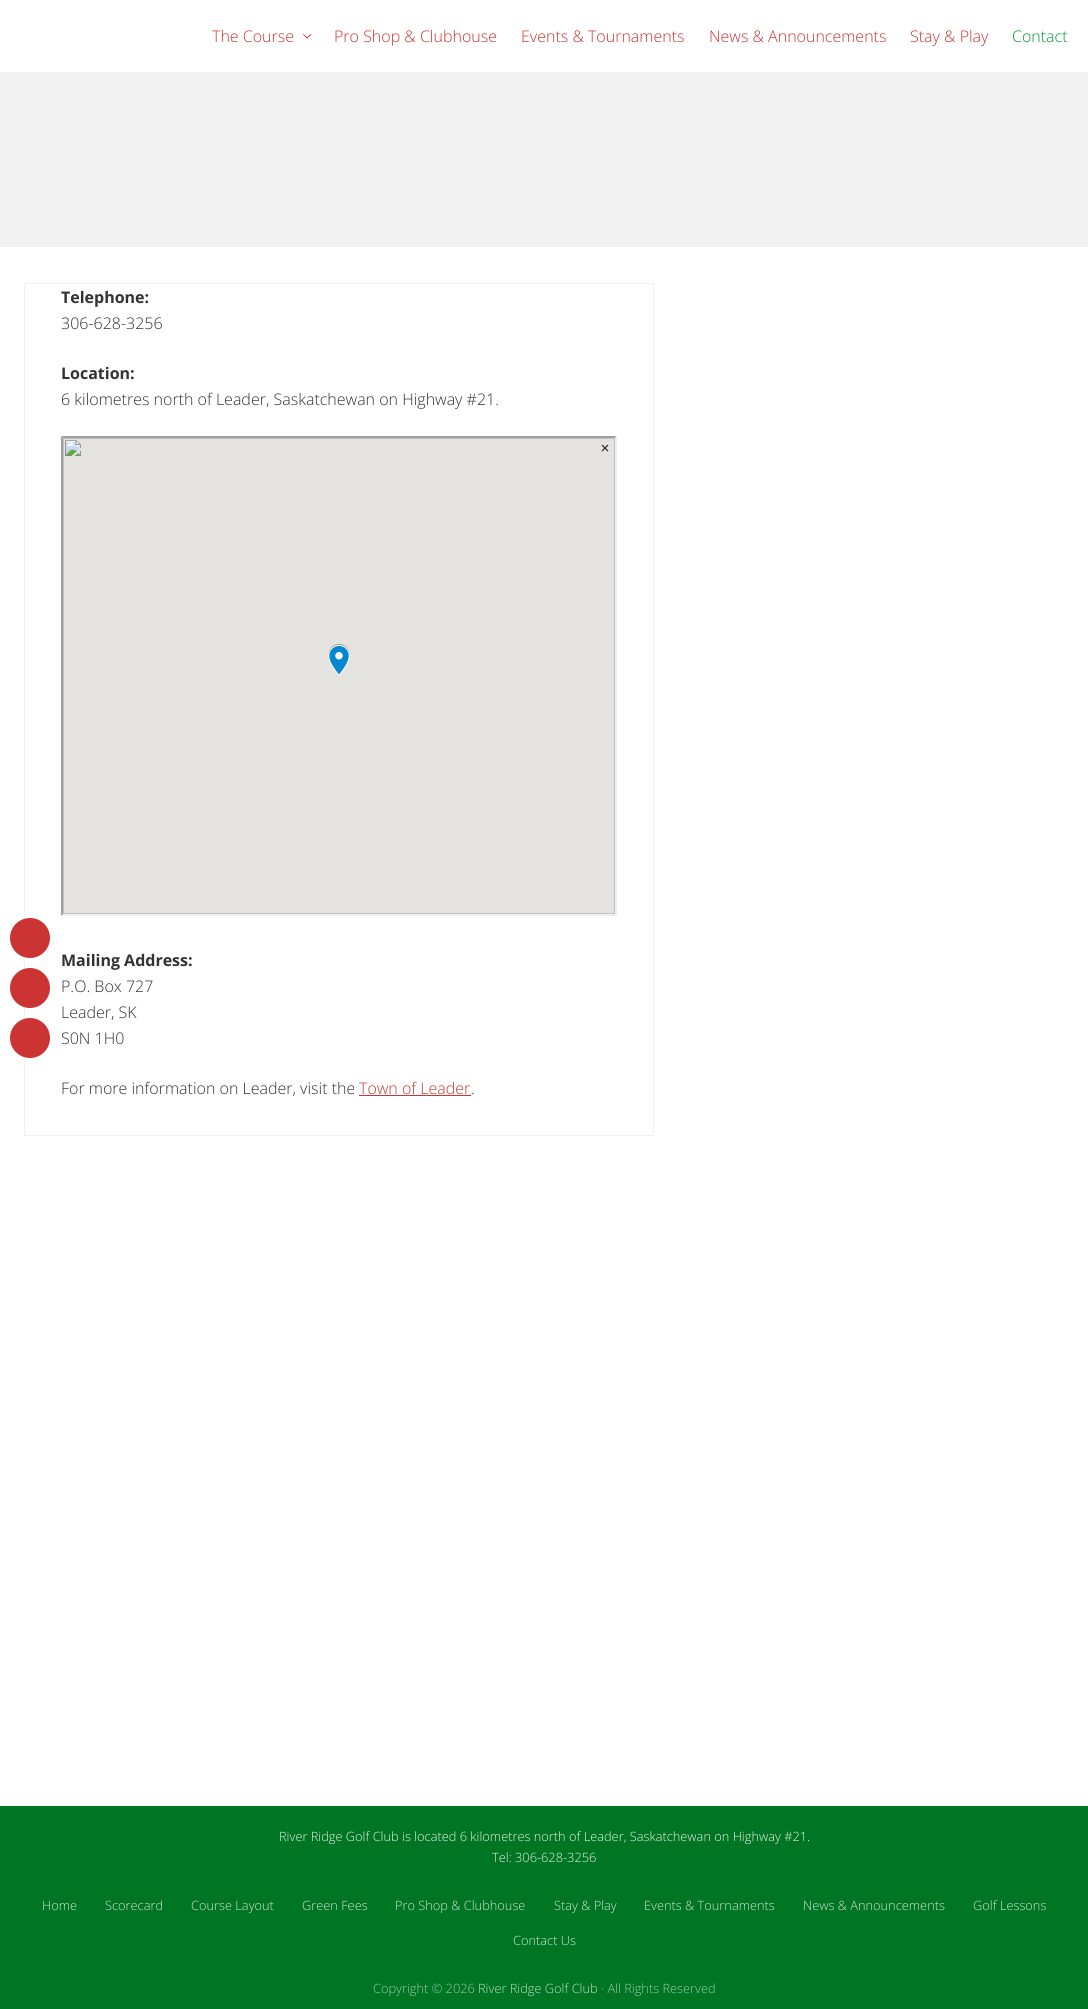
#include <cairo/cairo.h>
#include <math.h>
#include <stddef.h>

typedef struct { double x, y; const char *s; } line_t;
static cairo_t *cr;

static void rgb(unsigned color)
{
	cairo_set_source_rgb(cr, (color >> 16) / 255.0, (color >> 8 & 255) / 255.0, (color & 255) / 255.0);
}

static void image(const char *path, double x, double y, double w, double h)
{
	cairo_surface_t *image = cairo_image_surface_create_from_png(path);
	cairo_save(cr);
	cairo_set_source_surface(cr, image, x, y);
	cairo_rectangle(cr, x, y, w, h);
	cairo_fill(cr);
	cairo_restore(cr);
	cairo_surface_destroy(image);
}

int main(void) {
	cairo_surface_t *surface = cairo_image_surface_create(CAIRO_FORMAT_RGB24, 1088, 2009);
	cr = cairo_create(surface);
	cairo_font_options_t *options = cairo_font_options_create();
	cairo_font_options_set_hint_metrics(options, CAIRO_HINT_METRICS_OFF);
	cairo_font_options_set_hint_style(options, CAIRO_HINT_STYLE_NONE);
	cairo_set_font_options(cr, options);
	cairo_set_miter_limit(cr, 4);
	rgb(0xffffff);
	cairo_paint(cr);
	cairo_rectangle(cr, 24.5, 283.5, 629, 852);
	rgb(0xf0f0f0);
	cairo_set_line_width(cr, 1);
	cairo_stroke(cr);
	rgb(0xcc3333);
	cairo_arc(cr, 30, 938, 20, 0, 2 * M_PI);
	cairo_fill(cr);
	cairo_arc(cr, 30, 988, 20, 0, 2 * M_PI);
	cairo_fill(cr);
	cairo_arc(cr, 30, 1038, 20, 0, 2 * M_PI);
	cairo_fill(cr);
	rgb(0xf2f2f2);
	cairo_rectangle(cr, 0, 72, 1088, 1);
	cairo_fill(cr);
	rgb(0xcc3333);
	cairo_new_path(cr);
	cairo_move_to(cr, 310.5, 34);
	cairo_line_to(cr, 311.5, 34.5);
	cairo_line_to(cr, 307, 38.5);
	cairo_line_to(cr, 306.5, 38);
	cairo_close_path(cr);
	cairo_fill(cr);
	cairo_new_path(cr);
	cairo_move_to(cr, 303.5, 34);
	cairo_line_to(cr, 308, 38);
	cairo_line_to(cr, 307, 38.5);
	cairo_line_to(cr, 303, 34.5);
	cairo_close_path(cr);
	cairo_fill(cr);
	rgb(0xf1f1f1);
	cairo_rectangle(cr, 0, 73, 1088, 174);
	cairo_fill(cr);
	rgb(0x9f9f9f);
	cairo_new_path(cr);
	cairo_move_to(cr, 61, 436);
	cairo_line_to(cr, 617, 436);
	cairo_line_to(cr, 615, 438);
	cairo_line_to(cr, 63, 438);
	cairo_close_path(cr);
	cairo_fill(cr);
	rgb(0xeeeeee);
	cairo_new_path(cr);
	cairo_move_to(cr, 617, 436);
	cairo_line_to(cr, 617, 916);
	cairo_line_to(cr, 615, 914);
	cairo_line_to(cr, 615, 438);
	cairo_close_path(cr);
	cairo_fill(cr);
	cairo_new_path(cr);
	cairo_move_to(cr, 617, 916);
	cairo_line_to(cr, 61, 916);
	cairo_line_to(cr, 63, 914);
	cairo_line_to(cr, 615, 914);
	cairo_close_path(cr);
	cairo_fill(cr);
	rgb(0x9f9f9f);
	cairo_new_path(cr);
	cairo_move_to(cr, 61, 916);
	cairo_line_to(cr, 61, 436);
	cairo_line_to(cr, 63, 438);
	cairo_line_to(cr, 63, 914);
	cairo_close_path(cr);
	cairo_fill(cr);
	image("img/1.png", 63, 438, 552, 476);
	rgb(0xcc3333);
	cairo_rectangle(cr, 359, 1095, 112, 1);
	cairo_fill(cr);
	rgb(0x007625);
	cairo_rectangle(cr, 0, 1806, 1088, 203);
	cairo_fill(cr);
	cairo_select_font_face(cr, "Open Sans Light", CAIRO_FONT_SLANT_NORMAL, CAIRO_FONT_WEIGHT_NORMAL);
	cairo_set_font_size(cr, 16);
	rgb(0xcc3333);
	{
		static const line_t items[] = {
			{212, 42, "The Course"},
			{334, 42, "Pro Shop & Clubhouse"},
			{521, 42, "Events & Tournaments"},
			{709, 42, "News & Announcements"},
			{910, 42, "Stay & Play"},
		};
		for (size_t i = 0; i < sizeof items / sizeof *items; i++) {
			cairo_move_to(cr, items[i].x, items[i].y);
			cairo_show_text(cr, items[i].s);
		}
	}
	rgb(0x009830);
	cairo_move_to(cr, 1012, 42);
	cairo_show_text(cr, "Contact");
	cairo_select_font_face(cr, "Open Sans", CAIRO_FONT_SLANT_NORMAL, CAIRO_FONT_WEIGHT_BOLD);
	rgb(0x323232);
	cairo_move_to(cr, 61, 303);
	cairo_show_text(cr, "Telephone:");
	cairo_select_font_face(cr, "Open Sans Light", CAIRO_FONT_SLANT_NORMAL, CAIRO_FONT_WEIGHT_NORMAL);
	cairo_move_to(cr, 61, 329);
	cairo_show_text(cr, "306-628-3256");
	cairo_select_font_face(cr, "Open Sans", CAIRO_FONT_SLANT_NORMAL, CAIRO_FONT_WEIGHT_BOLD);
	cairo_move_to(cr, 61, 379);
	cairo_show_text(cr, "Location:");
	cairo_select_font_face(cr, "Open Sans Light", CAIRO_FONT_SLANT_NORMAL, CAIRO_FONT_WEIGHT_NORMAL);
	cairo_move_to(cr, 61, 405);
	cairo_show_text(cr, "6 kilometres north of Leader, Saskatchewan on Highway #21.");
	cairo_select_font_face(cr, "Open Sans", CAIRO_FONT_SLANT_NORMAL, CAIRO_FONT_WEIGHT_BOLD);
	cairo_move_to(cr, 61, 966);
	cairo_show_text(cr, "Mailing Address:");
	cairo_select_font_face(cr, "Open Sans Light", CAIRO_FONT_SLANT_NORMAL, CAIRO_FONT_WEIGHT_NORMAL);
	{
		static const line_t items[] = {
			{61, 992, "P.O. Box 727"},
			{61, 1018, "Leader, SK"},
			{61, 1044, "S0N 1H0"},
			{61, 1094, "For more information on Leader, visit the"},
		};
		for (size_t i = 0; i < sizeof items / sizeof *items; i++) {
			cairo_move_to(cr, items[i].x, items[i].y);
			cairo_show_text(cr, items[i].s);
		}
	}
	rgb(0xcc3333);
	cairo_move_to(cr, 359, 1094);
	cairo_show_text(cr, "Town of Leader");
	rgb(0x323232);
	cairo_move_to(cr, 471, 1094);
	cairo_show_text(cr, ".");
	cairo_set_font_size(cr, 12.8);
	rgb(0xe6f1e9);
	cairo_move_to(cr, 279, 1841);
	cairo_show_text(cr, "River Ridge Golf Club is located 6 kilometres north of Leader, Saskatchewan on Highway #21.");
	cairo_move_to(cr, 492, 1862);
	cairo_show_text(cr, "Tel: 306-628-3256");
	rgb(0xcce4d3);
	{
		static const line_t items[] = {
			{42, 1910, "Home"},
			{105, 1910, "Scorecard"},
			{191, 1910, "Course Layout"},
			{302, 1910, "Green Fees"},
			{395, 1910, "Pro Shop & Clubhouse"},
			{554, 1910, "Stay & Play"},
			{644, 1910, "Events & Tournaments"},
			{803, 1910, "News & Announcements"},
			{973, 1910, "Golf Lessons"},
			{513, 1945, "Contact Us"},
		};
		for (size_t i = 0; i < sizeof items / sizeof *items; i++) {
			cairo_move_to(cr, items[i].x, items[i].y);
			cairo_show_text(cr, items[i].s);
		}
	}
	rgb(0x99c8a8);
	cairo_move_to(cr, 373, 1993);
	cairo_show_text(cr, "Copyright © 2026");
	rgb(0xbfddc9);
	cairo_move_to(cr, 478, 1993);
	cairo_show_text(cr, "River Ridge Golf Club");
	rgb(0x99c8a8);
	cairo_move_to(cr, 601, 1993);
	cairo_show_text(cr, "· All Rights Reserved");
	cairo_surface_write_to_png(surface, "page.png");
	cairo_font_options_destroy(options);
	cairo_destroy(cr);
	cairo_surface_destroy(surface);
	return 0;
}
